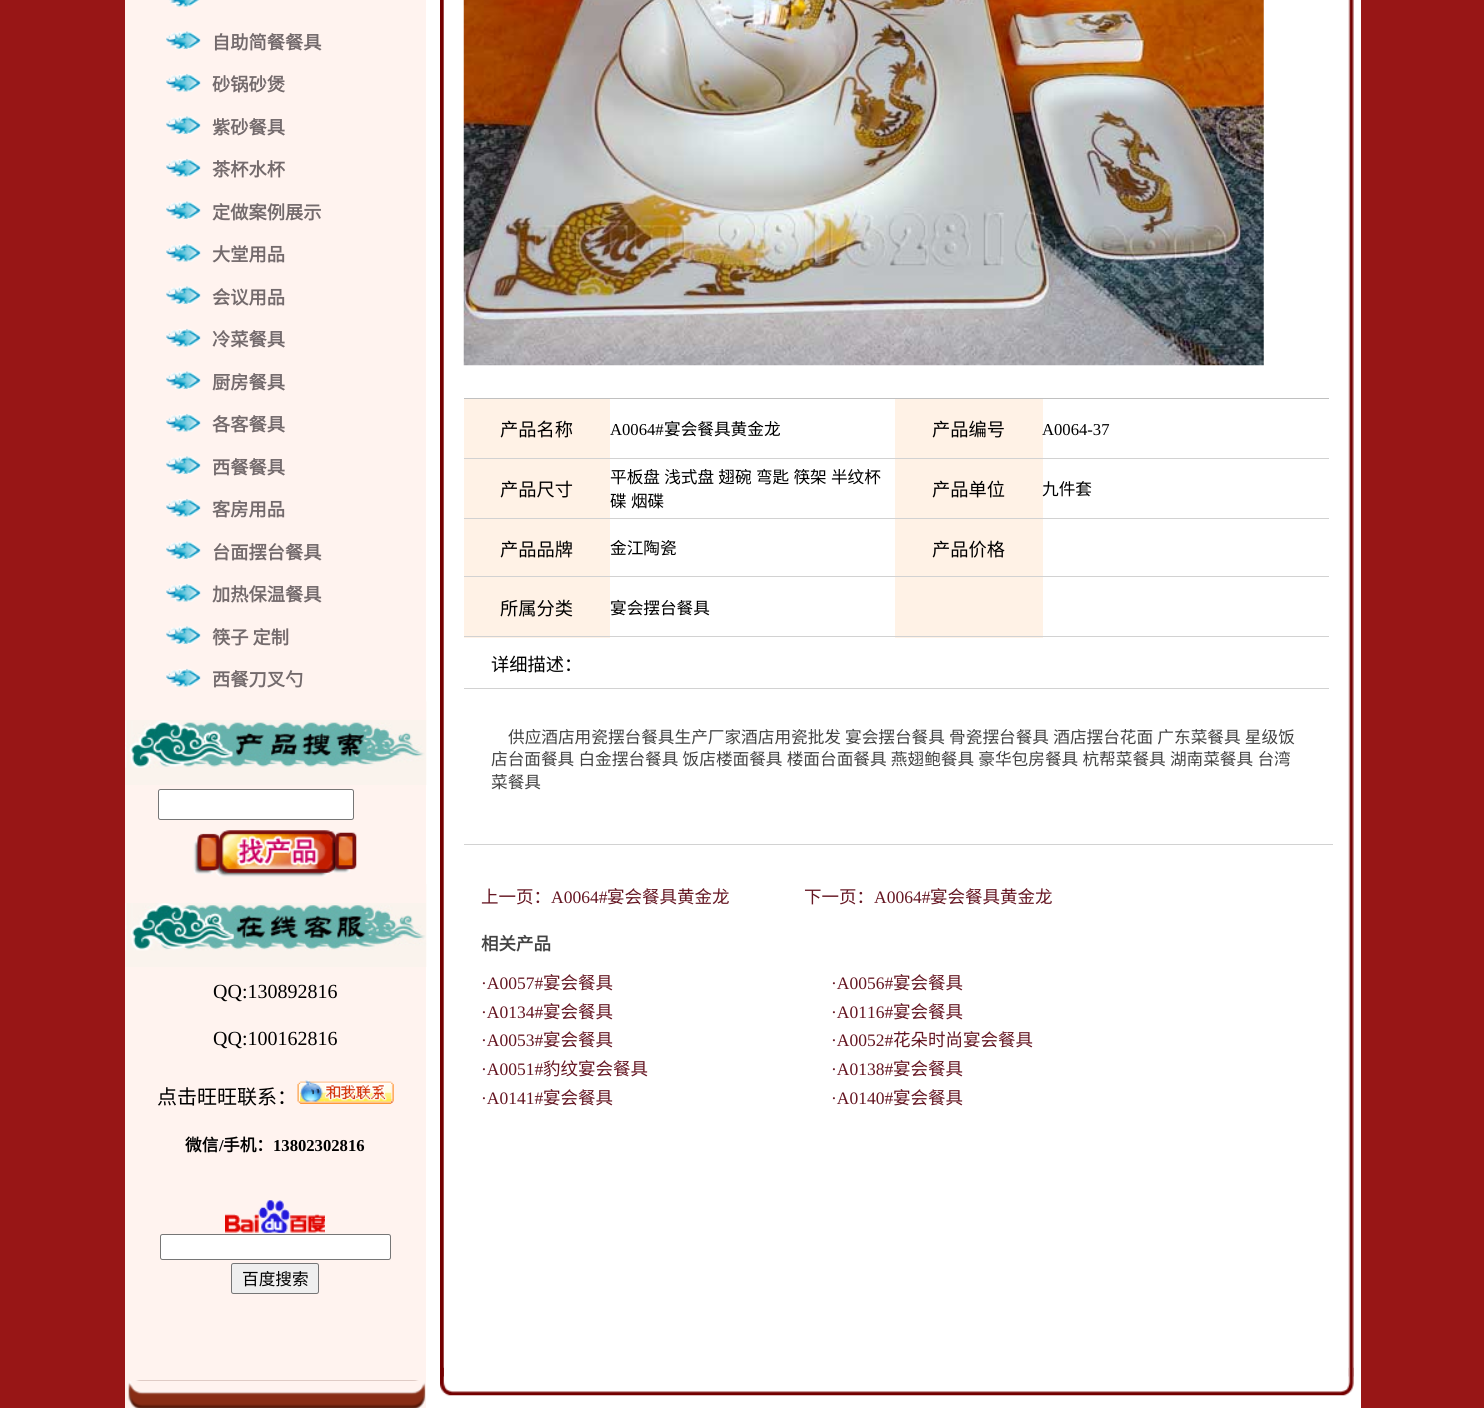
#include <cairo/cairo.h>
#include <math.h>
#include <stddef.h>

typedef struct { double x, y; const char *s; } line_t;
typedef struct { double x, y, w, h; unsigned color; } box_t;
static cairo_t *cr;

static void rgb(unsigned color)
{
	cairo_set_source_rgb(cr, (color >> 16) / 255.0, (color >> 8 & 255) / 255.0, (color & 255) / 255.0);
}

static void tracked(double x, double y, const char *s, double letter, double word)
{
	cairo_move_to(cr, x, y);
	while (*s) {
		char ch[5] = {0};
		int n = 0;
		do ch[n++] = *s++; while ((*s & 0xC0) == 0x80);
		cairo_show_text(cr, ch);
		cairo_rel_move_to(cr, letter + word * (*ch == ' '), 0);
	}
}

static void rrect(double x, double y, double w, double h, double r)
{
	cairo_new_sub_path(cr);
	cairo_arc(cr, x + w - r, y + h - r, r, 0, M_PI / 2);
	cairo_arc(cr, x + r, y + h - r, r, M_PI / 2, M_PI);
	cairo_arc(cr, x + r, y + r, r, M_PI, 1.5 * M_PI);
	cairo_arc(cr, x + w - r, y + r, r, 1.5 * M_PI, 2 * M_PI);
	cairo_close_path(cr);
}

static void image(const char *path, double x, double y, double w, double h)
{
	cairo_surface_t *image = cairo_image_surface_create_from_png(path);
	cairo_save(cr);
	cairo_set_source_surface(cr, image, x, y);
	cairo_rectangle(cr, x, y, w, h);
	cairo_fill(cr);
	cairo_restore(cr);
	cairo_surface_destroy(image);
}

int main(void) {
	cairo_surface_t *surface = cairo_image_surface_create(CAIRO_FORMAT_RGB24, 1484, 1408);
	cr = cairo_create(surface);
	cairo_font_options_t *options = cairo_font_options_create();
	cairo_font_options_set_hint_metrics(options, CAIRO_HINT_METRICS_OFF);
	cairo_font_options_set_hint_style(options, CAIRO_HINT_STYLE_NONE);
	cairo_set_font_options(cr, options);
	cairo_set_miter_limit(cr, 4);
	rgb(0x981616);
	cairo_paint(cr);
	rgb(0xffffff);
	cairo_rectangle(cr, 426, 0, 935, 1408);
	cairo_fill(cr);
	rgb(0xfff3ef);
	cairo_rectangle(cr, 125, 0, 301, 1408);
	cairo_fill(cr);
	image("img/1.png", 169, 0, 31, 7);
	image("img/2.png", 166, 31, 35, 18);
	image("img/3.png", 166, 73, 35, 19);
	image("img/2.png", 166, 116, 35, 18);
	image("img/3.png", 166, 158, 35, 19);
	image("img/2.png", 166, 201, 35, 18);
	image("img/3.png", 166, 243, 35, 19);
	image("img/2.png", 166, 286, 35, 18);
	image("img/3.png", 166, 328, 35, 19);
	image("img/2.png", 166, 371, 35, 18);
	image("img/4.png", 166, 413, 35, 19);
	image("img/2.png", 166, 456, 35, 18);
	image("img/3.png", 166, 498, 35, 19);
	image("img/2.png", 166, 541, 35, 18);
	image("img/3.png", 166, 583, 35, 19);
	image("img/2.png", 166, 626, 35, 18);
	image("img/3.png", 166, 668, 35, 19);
	image("img/5.png", 125, 701, 302, 84);
	cairo_rectangle(cr, 125, 701, 301, 19);
	cairo_fill(cr);
	rgb(0xffffff);
	rrect(158.5, 789.5, 195, 30, 2);
	cairo_fill_preserve(cr);
	rgb(0x767676);
	cairo_set_line_width(cr, 1);
	cairo_stroke(cr);
	image("img/6.png", 193, 830, 164, 47);
	image("img/7.png", 125, 884, 302, 83);
	rgb(0xfff3ef);
	cairo_rectangle(cr, 125, 884, 301, 19);
	cairo_fill(cr);
	image("img/8.png", 297, 1080, 97, 24);
	image("img/9.png", 225, 1200, 100, 33);
	rgb(0xffffff);
	rrect(160.5, 1234.5, 230, 25, 2);
	cairo_fill_preserve(cr);
	rgb(0x767676);
	cairo_stroke(cr);
	rgb(0xefefef);
	rrect(231.5, 1263.5, 87, 30, 2);
	cairo_fill_preserve(cr);
	rgb(0x767676);
	cairo_stroke(cr);
	image("img/10.png", 128, 1380, 298, 28);
	image("img/11.png", 440, 0, 914, 1377);
	image("img/12.png", 463, 0, 801, 366);
	{
		static const box_t items[] = {
			{464, 398, 865, 1, 0xc0c0c0},
			{464, 399, 146, 59, 0xfff2e6},
			{464, 458, 865, 1, 0xd2d2d2},
			{895, 399, 148, 59, 0xfff2e6},
			{464, 459, 146, 59, 0xfff2e6},
			{464, 518, 865, 1, 0xd2d2d2},
			{895, 459, 148, 59, 0xfff2e6},
			{464, 519, 146, 119, 0xfff2e6},
			{464, 576, 431, 1, 0xd2d2d2},
			{895, 519, 148, 119, 0xfff2e6},
			{895, 576, 434, 1, 0xd2d2d2},
			{464, 636, 865, 1, 0xd2d2d2},
			{464, 688, 865, 1, 0xd2d2d2},
			{464, 844, 869, 1, 0xd2d2d2},
		};
		for (size_t i = 0; i < sizeof items / sizeof *items; i++) {
			rgb(items[i].color);
			cairo_rectangle(cr, items[i].x, items[i].y, items[i].w, items[i].h);
			cairo_fill(cr);
		}
	}
	image("img/13.png", 440, 1367, 914, 29);
	cairo_select_font_face(cr, "Noto Sans CJK SC", CAIRO_FONT_SLANT_NORMAL, CAIRO_FONT_WEIGHT_BOLD);
	cairo_set_font_size(cr, 18.25);
	rgb(0x736a6c);
	{
		static const line_t items[] = {
			{212, 49, "自助简餐餐具"},
			{212, 91, "砂锅砂煲"},
			{212, 134, "紫砂餐具"},
			{212, 176, "茶杯水杯"},
			{212, 219, "定做案例展示"},
			{212, 261, "大堂用品"},
			{212, 304, "会议用品"},
			{212, 346, "冷菜餐具"},
			{212, 389, "厨房餐具"},
			{212, 431, "各客餐具"},
			{212, 474, "西餐餐具"},
			{212, 516, "客房用品"},
			{212, 559, "台面摆台餐具"},
			{212, 601, "加热保温餐具"},
			{212, 644, "筷子 定制"},
			{212, 686, "西餐刀叉勺"},
		};
		for (size_t i = 0; i < sizeof items / sizeof *items; i++) {
			cairo_move_to(cr, items[i].x, items[i].y);
			cairo_show_text(cr, items[i].s);
		}
	}
	cairo_select_font_face(cr, "Liberation Serif", CAIRO_FONT_SLANT_NORMAL, CAIRO_FONT_WEIGHT_NORMAL);
	cairo_set_font_size(cr, 20);
	rgb(0x000000);
	cairo_move_to(cr, 213, 998);
	cairo_show_text(cr, "QQ:130892816");
	cairo_move_to(cr, 213, 1045);
	cairo_show_text(cr, "QQ:100162816");
	cairo_select_font_face(cr, "Noto Sans CJK SC", CAIRO_FONT_SLANT_NORMAL, CAIRO_FONT_WEIGHT_NORMAL);
	cairo_move_to(cr, 157, 1104);
	cairo_show_text(cr, "点击旺旺联系：");
	cairo_select_font_face(cr, "Noto Sans CJK SC", CAIRO_FONT_SLANT_NORMAL, CAIRO_FONT_WEIGHT_BOLD);
	cairo_set_font_size(cr, 16.65);
	cairo_move_to(cr, 185, 1151);
	cairo_show_text(cr, "微信");
	cairo_select_font_face(cr, "Liberation Serif", CAIRO_FONT_SLANT_NORMAL, CAIRO_FONT_WEIGHT_BOLD);
	cairo_move_to(cr, 219, 1151);
	cairo_show_text(cr, "/");
	cairo_select_font_face(cr, "Noto Sans CJK SC", CAIRO_FONT_SLANT_NORMAL, CAIRO_FONT_WEIGHT_BOLD);
	cairo_move_to(cr, 223, 1151);
	cairo_show_text(cr, "手机：");
	cairo_select_font_face(cr, "Liberation Serif", CAIRO_FONT_SLANT_NORMAL, CAIRO_FONT_WEIGHT_BOLD);
	cairo_move_to(cr, 273, 1151);
	cairo_show_text(cr, "13802302816");
	cairo_select_font_face(cr, "Noto Sans CJK SC", CAIRO_FONT_SLANT_NORMAL, CAIRO_FONT_WEIGHT_NORMAL);
	cairo_move_to(cr, 242, 1285);
	cairo_show_text(cr, "百度搜索");
	cairo_set_font_size(cr, 18.25);
	cairo_move_to(cr, 500, 436);
	cairo_show_text(cr, "产品名称");
	cairo_select_font_face(cr, "Liberation Serif", CAIRO_FONT_SLANT_NORMAL, CAIRO_FONT_WEIGHT_NORMAL);
	cairo_set_font_size(cr, 16.65);
	cairo_move_to(cr, 610, 435);
	cairo_show_text(cr, "A0064#");
	cairo_select_font_face(cr, "Noto Sans CJK SC", CAIRO_FONT_SLANT_NORMAL, CAIRO_FONT_WEIGHT_NORMAL);
	cairo_move_to(cr, 664, 435);
	cairo_show_text(cr, "宴会餐具黄金龙");
	cairo_set_font_size(cr, 18.25);
	cairo_move_to(cr, 932, 436);
	cairo_show_text(cr, "产品编号");
	cairo_select_font_face(cr, "Liberation Serif", CAIRO_FONT_SLANT_NORMAL, CAIRO_FONT_WEIGHT_NORMAL);
	cairo_set_font_size(cr, 16.65);
	cairo_move_to(cr, 1042, 435);
	cairo_show_text(cr, "A0064-37");
	cairo_select_font_face(cr, "Noto Sans CJK SC", CAIRO_FONT_SLANT_NORMAL, CAIRO_FONT_WEIGHT_NORMAL);
	cairo_set_font_size(cr, 18.25);
	cairo_move_to(cr, 500, 496);
	cairo_show_text(cr, "产品尺寸");
	cairo_set_font_size(cr, 16.65);
	tracked(610, 483, "平板盘 浅式盘 翅碗 弯匙 筷架 半纹杯", 0, 0.5);
	tracked(610, 507, "碟 烟碟", 0, 0.5);
	cairo_set_font_size(cr, 18.25);
	cairo_move_to(cr, 932, 496);
	cairo_show_text(cr, "产品单位");
	cairo_set_font_size(cr, 16.65);
	cairo_move_to(cr, 1042, 495);
	cairo_show_text(cr, "九件套");
	cairo_set_font_size(cr, 18.25);
	cairo_move_to(cr, 500, 556);
	cairo_show_text(cr, "产品品牌");
	cairo_set_font_size(cr, 16.65);
	cairo_move_to(cr, 610, 554);
	cairo_show_text(cr, "金江陶瓷");
	cairo_set_font_size(cr, 18.25);
	cairo_move_to(cr, 932, 556);
	cairo_show_text(cr, "产品价格");
	cairo_move_to(cr, 500, 615);
	cairo_show_text(cr, "所属分类");
	cairo_set_font_size(cr, 16.65);
	cairo_move_to(cr, 610, 614);
	cairo_show_text(cr, "宴会摆台餐具");
	cairo_set_font_size(cr, 18.25);
	cairo_move_to(cr, 491, 671);
	cairo_show_text(cr, "详细描述：");
	cairo_set_font_size(cr, 16.65);
	rgb(0x434343);
	cairo_move_to(cr, 508, 743);
	cairo_show_text(cr, "供应酒店用瓷摆台餐具生产厂家酒店用瓷批发");
	tracked(845, 743, "宴会摆台餐具 骨瓷摆台餐具 酒店摆台花面 广东菜餐具 星级饭", 0, 0.5);
	tracked(491, 765, "店台面餐具 白金摆台餐具 饭店楼面餐具 楼面台面餐具 燕翅鲍餐具 豪华包房餐具 杭帮菜餐具 湖南菜餐具 台湾", 0, 0.5);
	cairo_move_to(cr, 491, 788);
	cairo_show_text(cr, "菜餐具");
	cairo_set_font_size(cr, 17.5);
	rgb(0x651622);
	cairo_move_to(cr, 481, 903);
	cairo_show_text(cr, "上一页：");
	cairo_select_font_face(cr, "Liberation Serif", CAIRO_FONT_SLANT_NORMAL, CAIRO_FONT_WEIGHT_NORMAL);
	cairo_move_to(cr, 551, 903);
	cairo_show_text(cr, "A0064#");
	cairo_select_font_face(cr, "Noto Sans CJK SC", CAIRO_FONT_SLANT_NORMAL, CAIRO_FONT_WEIGHT_NORMAL);
	cairo_move_to(cr, 607, 903);
	cairo_show_text(cr, "宴会餐具黄金龙");
	cairo_move_to(cr, 804, 903);
	cairo_show_text(cr, "下一页：");
	cairo_select_font_face(cr, "Liberation Serif", CAIRO_FONT_SLANT_NORMAL, CAIRO_FONT_WEIGHT_NORMAL);
	cairo_move_to(cr, 874, 903);
	cairo_show_text(cr, "A0064#");
	cairo_select_font_face(cr, "Noto Sans CJK SC", CAIRO_FONT_SLANT_NORMAL, CAIRO_FONT_WEIGHT_NORMAL);
	cairo_move_to(cr, 930, 903);
	cairo_show_text(cr, "宴会餐具黄金龙");
	cairo_select_font_face(cr, "Noto Sans CJK SC", CAIRO_FONT_SLANT_NORMAL, CAIRO_FONT_WEIGHT_BOLD);
	rgb(0x434343);
	cairo_move_to(cr, 481, 950);
	cairo_show_text(cr, "相关产品");
	cairo_select_font_face(cr, "Liberation Serif", CAIRO_FONT_SLANT_NORMAL, CAIRO_FONT_WEIGHT_NORMAL);
	rgb(0x651622);
	cairo_move_to(cr, 481, 989);
	cairo_show_text(cr, "·A0057#");
	cairo_select_font_face(cr, "Noto Sans CJK SC", CAIRO_FONT_SLANT_NORMAL, CAIRO_FONT_WEIGHT_NORMAL);
	cairo_move_to(cr, 543, 989);
	cairo_show_text(cr, "宴会餐具");
	cairo_select_font_face(cr, "Liberation Serif", CAIRO_FONT_SLANT_NORMAL, CAIRO_FONT_WEIGHT_NORMAL);
	cairo_move_to(cr, 831, 989);
	cairo_show_text(cr, "·A0056#");
	cairo_select_font_face(cr, "Noto Sans CJK SC", CAIRO_FONT_SLANT_NORMAL, CAIRO_FONT_WEIGHT_NORMAL);
	cairo_move_to(cr, 893, 989);
	cairo_show_text(cr, "宴会餐具");
	cairo_select_font_face(cr, "Liberation Serif", CAIRO_FONT_SLANT_NORMAL, CAIRO_FONT_WEIGHT_NORMAL);
	cairo_move_to(cr, 481, 1018);
	cairo_show_text(cr, "·A0134#");
	cairo_select_font_face(cr, "Noto Sans CJK SC", CAIRO_FONT_SLANT_NORMAL, CAIRO_FONT_WEIGHT_NORMAL);
	cairo_move_to(cr, 543, 1018);
	cairo_show_text(cr, "宴会餐具");
	cairo_select_font_face(cr, "Liberation Serif", CAIRO_FONT_SLANT_NORMAL, CAIRO_FONT_WEIGHT_NORMAL);
	cairo_move_to(cr, 831, 1018);
	cairo_show_text(cr, "·A0116#");
	cairo_select_font_face(cr, "Noto Sans CJK SC", CAIRO_FONT_SLANT_NORMAL, CAIRO_FONT_WEIGHT_NORMAL);
	cairo_move_to(cr, 893, 1018);
	cairo_show_text(cr, "宴会餐具");
	cairo_select_font_face(cr, "Liberation Serif", CAIRO_FONT_SLANT_NORMAL, CAIRO_FONT_WEIGHT_NORMAL);
	cairo_move_to(cr, 481, 1046);
	cairo_show_text(cr, "·A0053#");
	cairo_select_font_face(cr, "Noto Sans CJK SC", CAIRO_FONT_SLANT_NORMAL, CAIRO_FONT_WEIGHT_NORMAL);
	cairo_move_to(cr, 543, 1046);
	cairo_show_text(cr, "宴会餐具");
	cairo_select_font_face(cr, "Liberation Serif", CAIRO_FONT_SLANT_NORMAL, CAIRO_FONT_WEIGHT_NORMAL);
	cairo_move_to(cr, 831, 1046);
	cairo_show_text(cr, "·A0052#");
	cairo_select_font_face(cr, "Noto Sans CJK SC", CAIRO_FONT_SLANT_NORMAL, CAIRO_FONT_WEIGHT_NORMAL);
	cairo_move_to(cr, 893, 1046);
	cairo_show_text(cr, "花朵时尚宴会餐具");
	cairo_select_font_face(cr, "Liberation Serif", CAIRO_FONT_SLANT_NORMAL, CAIRO_FONT_WEIGHT_NORMAL);
	cairo_move_to(cr, 481, 1075);
	cairo_show_text(cr, "·A0051#");
	cairo_select_font_face(cr, "Noto Sans CJK SC", CAIRO_FONT_SLANT_NORMAL, CAIRO_FONT_WEIGHT_NORMAL);
	cairo_move_to(cr, 543, 1075);
	cairo_show_text(cr, "豹纹宴会餐具");
	cairo_select_font_face(cr, "Liberation Serif", CAIRO_FONT_SLANT_NORMAL, CAIRO_FONT_WEIGHT_NORMAL);
	cairo_move_to(cr, 831, 1075);
	cairo_show_text(cr, "·A0138#");
	cairo_select_font_face(cr, "Noto Sans CJK SC", CAIRO_FONT_SLANT_NORMAL, CAIRO_FONT_WEIGHT_NORMAL);
	cairo_move_to(cr, 893, 1075);
	cairo_show_text(cr, "宴会餐具");
	cairo_select_font_face(cr, "Liberation Serif", CAIRO_FONT_SLANT_NORMAL, CAIRO_FONT_WEIGHT_NORMAL);
	cairo_move_to(cr, 481, 1104);
	cairo_show_text(cr, "·A0141#");
	cairo_select_font_face(cr, "Noto Sans CJK SC", CAIRO_FONT_SLANT_NORMAL, CAIRO_FONT_WEIGHT_NORMAL);
	cairo_move_to(cr, 543, 1104);
	cairo_show_text(cr, "宴会餐具");
	cairo_select_font_face(cr, "Liberation Serif", CAIRO_FONT_SLANT_NORMAL, CAIRO_FONT_WEIGHT_NORMAL);
	cairo_move_to(cr, 831, 1104);
	cairo_show_text(cr, "·A0140#");
	cairo_select_font_face(cr, "Noto Sans CJK SC", CAIRO_FONT_SLANT_NORMAL, CAIRO_FONT_WEIGHT_NORMAL);
	cairo_move_to(cr, 893, 1104);
	cairo_show_text(cr, "宴会餐具");
	cairo_surface_write_to_png(surface, "page.png");
	cairo_font_options_destroy(options);
	cairo_destroy(cr);
	cairo_surface_destroy(surface);
	return 0;
}
